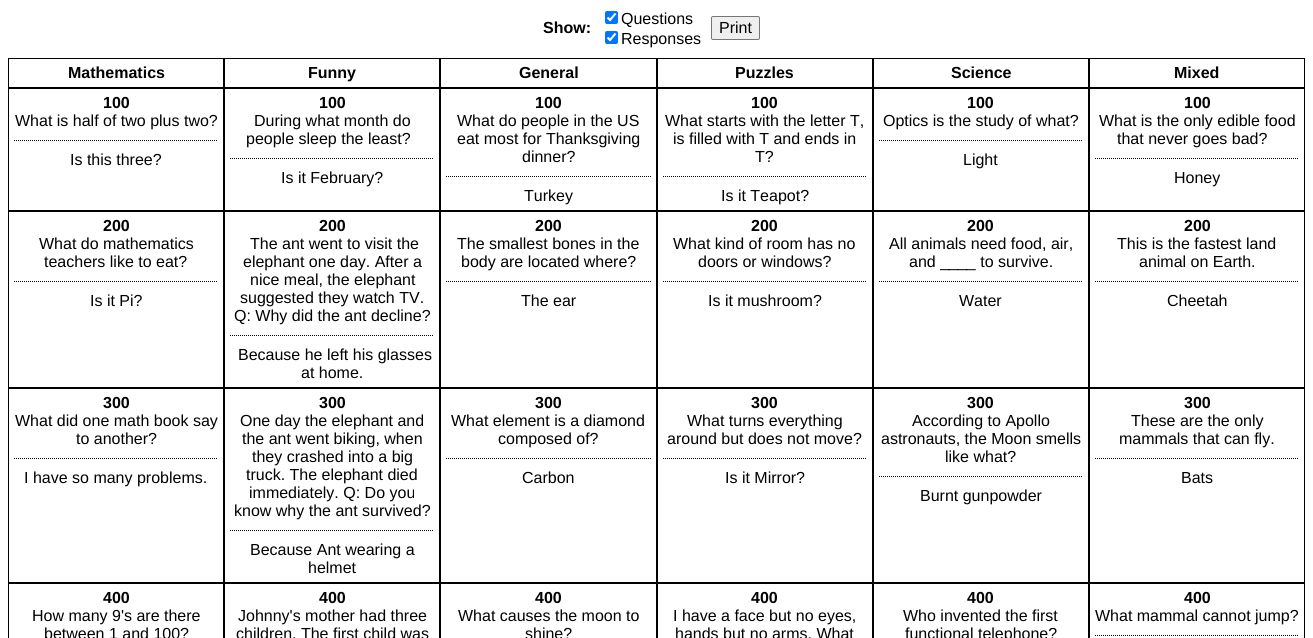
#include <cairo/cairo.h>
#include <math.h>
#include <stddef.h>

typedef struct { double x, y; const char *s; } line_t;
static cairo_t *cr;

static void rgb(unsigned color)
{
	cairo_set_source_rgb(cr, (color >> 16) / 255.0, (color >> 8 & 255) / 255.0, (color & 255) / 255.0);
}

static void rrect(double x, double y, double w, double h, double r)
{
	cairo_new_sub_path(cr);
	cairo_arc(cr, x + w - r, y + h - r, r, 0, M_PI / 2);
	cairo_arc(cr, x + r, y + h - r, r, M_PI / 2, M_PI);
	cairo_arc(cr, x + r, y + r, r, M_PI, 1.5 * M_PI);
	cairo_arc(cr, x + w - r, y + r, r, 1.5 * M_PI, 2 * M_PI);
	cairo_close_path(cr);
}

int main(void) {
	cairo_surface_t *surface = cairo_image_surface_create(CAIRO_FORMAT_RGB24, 1313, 638);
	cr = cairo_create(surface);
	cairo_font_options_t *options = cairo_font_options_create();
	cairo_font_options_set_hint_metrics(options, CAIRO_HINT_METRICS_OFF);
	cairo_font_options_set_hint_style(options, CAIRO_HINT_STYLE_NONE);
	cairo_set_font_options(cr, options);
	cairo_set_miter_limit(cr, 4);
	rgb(0xffffff);
	cairo_paint(cr);
	rgb(0x0075ff);
	rrect(605, 11, 13, 13, 2);
	cairo_fill(cr);
	cairo_new_path(cr);
	cairo_move_to(cr, 607.5, 17.5);
	cairo_line_to(cr, 610, 20);
	cairo_line_to(cr, 615.5, 13.5);
	rgb(0xffffff);
	cairo_set_line_width(cr, 2.1);
	cairo_stroke(cr);
	rgb(0x0075ff);
	rrect(605, 31, 13, 13, 2);
	cairo_fill(cr);
	cairo_new_path(cr);
	cairo_move_to(cr, 607.5, 37.5);
	cairo_line_to(cr, 610, 40);
	cairo_line_to(cr, 615.5, 33.5);
	rgb(0xffffff);
	cairo_stroke(cr);
	rgb(0xefefef);
	rrect(711.5, 16.5, 48, 23, 1.5);
	cairo_fill_preserve(cr);
	rgb(0x767676);
	cairo_set_line_width(cr, 1);
	cairo_stroke(cr);
	cairo_rectangle(cr, 8.5, 58.5, 215, 29);
	rgb(0x000000);
	cairo_stroke(cr);
	cairo_rectangle(cr, 224.5, 58.5, 215, 29);
	cairo_stroke(cr);
	cairo_rectangle(cr, 440.5, 58.5, 216, 29);
	cairo_stroke(cr);
	cairo_rectangle(cr, 657.5, 58.5, 215, 29);
	cairo_stroke(cr);
	cairo_rectangle(cr, 873.5, 58.5, 215, 29);
	cairo_stroke(cr);
	cairo_rectangle(cr, 1089.5, 58.5, 215, 29);
	cairo_stroke(cr);
	cairo_rectangle(cr, 8.5, 88.5, 215, 122);
	cairo_stroke(cr);
	cairo_new_path(cr);
	cairo_move_to(cr, 14, 140.5);
	cairo_line_to(cr, 218, 140.5);
	cairo_set_dash(cr, (double[]){1, 1}, 2, 0);
	cairo_stroke(cr);
	cairo_rectangle(cr, 224.5, 88.5, 215, 122);
	cairo_set_dash(cr, NULL, 0, 0);
	cairo_stroke(cr);
	cairo_new_path(cr);
	cairo_move_to(cr, 230, 158.5);
	cairo_line_to(cr, 434, 158.5);
	cairo_set_dash(cr, (double[]){1, 1}, 2, 0);
	cairo_stroke(cr);
	cairo_rectangle(cr, 440.5, 88.5, 216, 122);
	cairo_set_dash(cr, NULL, 0, 0);
	cairo_stroke(cr);
	cairo_new_path(cr);
	cairo_move_to(cr, 446, 176.5);
	cairo_line_to(cr, 651, 176.5);
	cairo_set_dash(cr, (double[]){1, 1}, 2, 0);
	cairo_stroke(cr);
	cairo_rectangle(cr, 657.5, 88.5, 215, 122);
	cairo_set_dash(cr, NULL, 0, 0);
	cairo_stroke(cr);
	cairo_new_path(cr);
	cairo_move_to(cr, 663, 176.5);
	cairo_line_to(cr, 867, 176.5);
	cairo_set_dash(cr, (double[]){1, 1}, 2, 0);
	cairo_stroke(cr);
	cairo_rectangle(cr, 873.5, 88.5, 215, 122);
	cairo_set_dash(cr, NULL, 0, 0);
	cairo_stroke(cr);
	cairo_new_path(cr);
	cairo_move_to(cr, 879, 140.5);
	cairo_line_to(cr, 1083, 140.5);
	cairo_set_dash(cr, (double[]){1, 1}, 2, 0);
	cairo_stroke(cr);
	cairo_rectangle(cr, 1089.5, 88.5, 215, 122);
	cairo_set_dash(cr, NULL, 0, 0);
	cairo_stroke(cr);
	cairo_new_path(cr);
	cairo_move_to(cr, 1095, 158.5);
	cairo_line_to(cr, 1299, 158.5);
	cairo_set_dash(cr, (double[]){1, 1}, 2, 0);
	cairo_stroke(cr);
	cairo_rectangle(cr, 8.5, 211.5, 215, 176);
	cairo_set_dash(cr, NULL, 0, 0);
	cairo_stroke(cr);
	cairo_new_path(cr);
	cairo_move_to(cr, 14, 281.5);
	cairo_line_to(cr, 218, 281.5);
	cairo_set_dash(cr, (double[]){1, 1}, 2, 0);
	cairo_stroke(cr);
	cairo_rectangle(cr, 224.5, 211.5, 215, 176);
	cairo_set_dash(cr, NULL, 0, 0);
	cairo_stroke(cr);
	cairo_new_path(cr);
	cairo_move_to(cr, 230, 335.5);
	cairo_line_to(cr, 434, 335.5);
	cairo_set_dash(cr, (double[]){1, 1}, 2, 0);
	cairo_stroke(cr);
	cairo_rectangle(cr, 440.5, 211.5, 216, 176);
	cairo_set_dash(cr, NULL, 0, 0);
	cairo_stroke(cr);
	cairo_new_path(cr);
	cairo_move_to(cr, 446, 281.5);
	cairo_line_to(cr, 651, 281.5);
	cairo_set_dash(cr, (double[]){1, 1}, 2, 0);
	cairo_stroke(cr);
	cairo_rectangle(cr, 657.5, 211.5, 215, 176);
	cairo_set_dash(cr, NULL, 0, 0);
	cairo_stroke(cr);
	cairo_new_path(cr);
	cairo_move_to(cr, 663, 281.5);
	cairo_line_to(cr, 867, 281.5);
	cairo_set_dash(cr, (double[]){1, 1}, 2, 0);
	cairo_stroke(cr);
	cairo_rectangle(cr, 873.5, 211.5, 215, 176);
	cairo_set_dash(cr, NULL, 0, 0);
	cairo_stroke(cr);
	cairo_new_path(cr);
	cairo_move_to(cr, 879, 281.5);
	cairo_line_to(cr, 1083, 281.5);
	cairo_set_dash(cr, (double[]){1, 1}, 2, 0);
	cairo_stroke(cr);
	cairo_rectangle(cr, 1089.5, 211.5, 215, 176);
	cairo_set_dash(cr, NULL, 0, 0);
	cairo_stroke(cr);
	cairo_new_path(cr);
	cairo_move_to(cr, 1095, 281.5);
	cairo_line_to(cr, 1299, 281.5);
	cairo_set_dash(cr, (double[]){1, 1}, 2, 0);
	cairo_stroke(cr);
	cairo_rectangle(cr, 8.5, 388.5, 215, 194);
	cairo_set_dash(cr, NULL, 0, 0);
	cairo_stroke(cr);
	cairo_new_path(cr);
	cairo_move_to(cr, 14, 458.5);
	cairo_line_to(cr, 218, 458.5);
	cairo_set_dash(cr, (double[]){1, 1}, 2, 0);
	cairo_stroke(cr);
	cairo_rectangle(cr, 224.5, 388.5, 215, 194);
	cairo_set_dash(cr, NULL, 0, 0);
	cairo_stroke(cr);
	cairo_new_path(cr);
	cairo_move_to(cr, 230, 530.5);
	cairo_line_to(cr, 434, 530.5);
	cairo_set_dash(cr, (double[]){1, 1}, 2, 0);
	cairo_stroke(cr);
	cairo_rectangle(cr, 440.5, 388.5, 216, 194);
	cairo_set_dash(cr, NULL, 0, 0);
	cairo_stroke(cr);
	cairo_new_path(cr);
	cairo_move_to(cr, 446, 458.5);
	cairo_line_to(cr, 651, 458.5);
	cairo_set_dash(cr, (double[]){1, 1}, 2, 0);
	cairo_stroke(cr);
	cairo_rectangle(cr, 657.5, 388.5, 215, 194);
	cairo_set_dash(cr, NULL, 0, 0);
	cairo_stroke(cr);
	cairo_new_path(cr);
	cairo_move_to(cr, 663, 458.5);
	cairo_line_to(cr, 867, 458.5);
	cairo_set_dash(cr, (double[]){1, 1}, 2, 0);
	cairo_stroke(cr);
	cairo_rectangle(cr, 873.5, 388.5, 215, 194);
	cairo_set_dash(cr, NULL, 0, 0);
	cairo_stroke(cr);
	cairo_new_path(cr);
	cairo_move_to(cr, 879, 476.5);
	cairo_line_to(cr, 1083, 476.5);
	cairo_set_dash(cr, (double[]){1, 1}, 2, 0);
	cairo_stroke(cr);
	cairo_rectangle(cr, 1089.5, 388.5, 215, 194);
	cairo_set_dash(cr, NULL, 0, 0);
	cairo_stroke(cr);
	cairo_new_path(cr);
	cairo_move_to(cr, 1095, 458.5);
	cairo_line_to(cr, 1299, 458.5);
	cairo_set_dash(cr, (double[]){1, 1}, 2, 0);
	cairo_stroke(cr);
	cairo_rectangle(cr, 8.5, 583.5, 215, 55);
	cairo_set_dash(cr, NULL, 0, 0);
	cairo_stroke(cr);
	cairo_rectangle(cr, 224.5, 583.5, 215, 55);
	cairo_stroke(cr);
	cairo_rectangle(cr, 440.5, 583.5, 216, 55);
	cairo_stroke(cr);
	cairo_rectangle(cr, 657.5, 583.5, 215, 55);
	cairo_stroke(cr);
	cairo_rectangle(cr, 873.5, 583.5, 215, 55);
	cairo_stroke(cr);
	cairo_rectangle(cr, 1089.5, 583.5, 215, 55);
	cairo_stroke(cr);
	cairo_new_path(cr);
	cairo_move_to(cr, 1095, 635.5);
	cairo_line_to(cr, 1299, 635.5);
	cairo_set_dash(cr, (double[]){1, 1}, 2, 0);
	cairo_stroke(cr);
	cairo_select_font_face(cr, "Liberation Sans", CAIRO_FONT_SLANT_NORMAL, CAIRO_FONT_WEIGHT_BOLD);
	cairo_set_font_size(cr, 16);
	cairo_move_to(cr, 543, 33);
	cairo_show_text(cr, "Show:");
	cairo_select_font_face(cr, "Liberation Sans", CAIRO_FONT_SLANT_NORMAL, CAIRO_FONT_WEIGHT_NORMAL);
	{
		static const line_t items[] = {
			{621, 24, "Questions"},
			{621, 44, "Responses"},
			{719, 33, "Print"},
		};
		for (size_t i = 0; i < sizeof items / sizeof *items; i++) {
			cairo_move_to(cr, items[i].x, items[i].y);
			cairo_show_text(cr, items[i].s);
		}
	}
	cairo_select_font_face(cr, "Liberation Sans", CAIRO_FONT_SLANT_NORMAL, CAIRO_FONT_WEIGHT_BOLD);
	{
		static const line_t items[] = {
			{68, 78, "Mathematics"},
			{308, 78, "Funny"},
			{519, 78, "General"},
			{735, 78, "Puzzles"},
			{951, 78, "Science"},
			{1174, 78, "Mixed"},
			{103, 108, "100"},
		};
		for (size_t i = 0; i < sizeof items / sizeof *items; i++) {
			cairo_move_to(cr, items[i].x, items[i].y);
			cairo_show_text(cr, items[i].s);
		}
	}
	cairo_select_font_face(cr, "Liberation Sans", CAIRO_FONT_SLANT_NORMAL, CAIRO_FONT_WEIGHT_NORMAL);
	cairo_move_to(cr, 15, 126);
	cairo_show_text(cr, "What is half of two plus two?");
	cairo_move_to(cr, 70, 165);
	cairo_show_text(cr, "Is this three?");
	cairo_select_font_face(cr, "Liberation Sans", CAIRO_FONT_SLANT_NORMAL, CAIRO_FONT_WEIGHT_BOLD);
	cairo_move_to(cr, 319, 108);
	cairo_show_text(cr, "100");
	cairo_select_font_face(cr, "Liberation Sans", CAIRO_FONT_SLANT_NORMAL, CAIRO_FONT_WEIGHT_NORMAL);
	{
		static const line_t items[] = {
			{254, 126, "During what month do"},
			{246, 144, "people sleep the least?"},
			{281, 183, "Is it February?"},
		};
		for (size_t i = 0; i < sizeof items / sizeof *items; i++) {
			cairo_move_to(cr, items[i].x, items[i].y);
			cairo_show_text(cr, items[i].s);
		}
	}
	cairo_select_font_face(cr, "Liberation Sans", CAIRO_FONT_SLANT_NORMAL, CAIRO_FONT_WEIGHT_BOLD);
	cairo_move_to(cr, 535, 108);
	cairo_show_text(cr, "100");
	cairo_select_font_face(cr, "Liberation Sans", CAIRO_FONT_SLANT_NORMAL, CAIRO_FONT_WEIGHT_NORMAL);
	{
		static const line_t items[] = {
			{457, 126, "What do people in the US"},
			{457, 144, "eat most for Thanksgiving"},
			{522, 162, "dinner?"},
			{524, 201, "Turkey"},
		};
		for (size_t i = 0; i < sizeof items / sizeof *items; i++) {
			cairo_move_to(cr, items[i].x, items[i].y);
			cairo_show_text(cr, items[i].s);
		}
	}
	cairo_select_font_face(cr, "Liberation Sans", CAIRO_FONT_SLANT_NORMAL, CAIRO_FONT_WEIGHT_BOLD);
	cairo_move_to(cr, 751, 108);
	cairo_show_text(cr, "100");
	cairo_select_font_face(cr, "Liberation Sans", CAIRO_FONT_SLANT_NORMAL, CAIRO_FONT_WEIGHT_NORMAL);
	{
		static const line_t items[] = {
			{665, 126, "What starts with the letter T,"},
			{673, 144, "is filled with T and ends in"},
			{755, 162, "T?"},
			{721, 201, "Is it Teapot?"},
		};
		for (size_t i = 0; i < sizeof items / sizeof *items; i++) {
			cairo_move_to(cr, items[i].x, items[i].y);
			cairo_show_text(cr, items[i].s);
		}
	}
	cairo_select_font_face(cr, "Liberation Sans", CAIRO_FONT_SLANT_NORMAL, CAIRO_FONT_WEIGHT_BOLD);
	cairo_move_to(cr, 967, 108);
	cairo_show_text(cr, "100");
	cairo_select_font_face(cr, "Liberation Sans", CAIRO_FONT_SLANT_NORMAL, CAIRO_FONT_WEIGHT_NORMAL);
	cairo_move_to(cr, 883, 126);
	cairo_show_text(cr, "Optics is the study of what?");
	cairo_move_to(cr, 963, 165);
	cairo_show_text(cr, "Light");
	cairo_select_font_face(cr, "Liberation Sans", CAIRO_FONT_SLANT_NORMAL, CAIRO_FONT_WEIGHT_BOLD);
	cairo_move_to(cr, 1184, 108);
	cairo_show_text(cr, "100");
	cairo_select_font_face(cr, "Liberation Sans", CAIRO_FONT_SLANT_NORMAL, CAIRO_FONT_WEIGHT_NORMAL);
	{
		static const line_t items[] = {
			{1099, 126, "What is the only edible food"},
			{1117, 144, "that never goes bad?"},
			{1174, 183, "Honey"},
		};
		for (size_t i = 0; i < sizeof items / sizeof *items; i++) {
			cairo_move_to(cr, items[i].x, items[i].y);
			cairo_show_text(cr, items[i].s);
		}
	}
	cairo_select_font_face(cr, "Liberation Sans", CAIRO_FONT_SLANT_NORMAL, CAIRO_FONT_WEIGHT_BOLD);
	cairo_move_to(cr, 103, 231);
	cairo_show_text(cr, "200");
	cairo_select_font_face(cr, "Liberation Sans", CAIRO_FONT_SLANT_NORMAL, CAIRO_FONT_WEIGHT_NORMAL);
	{
		static const line_t items[] = {
			{39, 249, "What do mathematics"},
			{44, 267, "teachers like to eat?"},
			{90, 306, "Is it Pi?"},
		};
		for (size_t i = 0; i < sizeof items / sizeof *items; i++) {
			cairo_move_to(cr, items[i].x, items[i].y);
			cairo_show_text(cr, items[i].s);
		}
	}
	cairo_select_font_face(cr, "Liberation Sans", CAIRO_FONT_SLANT_NORMAL, CAIRO_FONT_WEIGHT_BOLD);
	cairo_move_to(cr, 319, 231);
	cairo_show_text(cr, "200");
	cairo_select_font_face(cr, "Liberation Sans", CAIRO_FONT_SLANT_NORMAL, CAIRO_FONT_WEIGHT_NORMAL);
	{
		static const line_t items[] = {
			{250, 249, "The ant went to visit the"},
			{243, 267, "elephant one day. After a"},
			{250, 285, "nice meal, the elephant"},
			{240, 303, "suggested they watch TV."},
			{234, 321, "Q: Why did the ant decline?"},
			{238, 360, "Because he left his glasses"},
			{301, 378, "at home."},
		};
		for (size_t i = 0; i < sizeof items / sizeof *items; i++) {
			cairo_move_to(cr, items[i].x, items[i].y);
			cairo_show_text(cr, items[i].s);
		}
	}
	cairo_select_font_face(cr, "Liberation Sans", CAIRO_FONT_SLANT_NORMAL, CAIRO_FONT_WEIGHT_BOLD);
	cairo_move_to(cr, 535, 231);
	cairo_show_text(cr, "200");
	cairo_select_font_face(cr, "Liberation Sans", CAIRO_FONT_SLANT_NORMAL, CAIRO_FONT_WEIGHT_NORMAL);
	{
		static const line_t items[] = {
			{457, 249, "The smallest bones in the"},
			{461, 267, "body are located where?"},
			{521, 306, "The ear"},
		};
		for (size_t i = 0; i < sizeof items / sizeof *items; i++) {
			cairo_move_to(cr, items[i].x, items[i].y);
			cairo_show_text(cr, items[i].s);
		}
	}
	cairo_select_font_face(cr, "Liberation Sans", CAIRO_FONT_SLANT_NORMAL, CAIRO_FONT_WEIGHT_BOLD);
	cairo_move_to(cr, 751, 231);
	cairo_show_text(cr, "200");
	cairo_select_font_face(cr, "Liberation Sans", CAIRO_FONT_SLANT_NORMAL, CAIRO_FONT_WEIGHT_NORMAL);
	{
		static const line_t items[] = {
			{673, 249, "What kind of room has no"},
			{698, 267, "doors or windows?"},
			{708, 306, "Is it mushroom?"},
		};
		for (size_t i = 0; i < sizeof items / sizeof *items; i++) {
			cairo_move_to(cr, items[i].x, items[i].y);
			cairo_show_text(cr, items[i].s);
		}
	}
	cairo_select_font_face(cr, "Liberation Sans", CAIRO_FONT_SLANT_NORMAL, CAIRO_FONT_WEIGHT_BOLD);
	cairo_move_to(cr, 967, 231);
	cairo_show_text(cr, "200");
	cairo_select_font_face(cr, "Liberation Sans", CAIRO_FONT_SLANT_NORMAL, CAIRO_FONT_WEIGHT_NORMAL);
	{
		static const line_t items[] = {
			{889, 249, "All animals need food, air,"},
			{909, 267, "and ____ to survive."},
			{959, 306, "Water"},
		};
		for (size_t i = 0; i < sizeof items / sizeof *items; i++) {
			cairo_move_to(cr, items[i].x, items[i].y);
			cairo_show_text(cr, items[i].s);
		}
	}
	cairo_select_font_face(cr, "Liberation Sans", CAIRO_FONT_SLANT_NORMAL, CAIRO_FONT_WEIGHT_BOLD);
	cairo_move_to(cr, 1184, 231);
	cairo_show_text(cr, "200");
	cairo_select_font_face(cr, "Liberation Sans", CAIRO_FONT_SLANT_NORMAL, CAIRO_FONT_WEIGHT_NORMAL);
	{
		static const line_t items[] = {
			{1117, 249, "This is the fastest land"},
			{1139, 267, "animal on Earth."},
			{1167, 306, "Cheetah"},
		};
		for (size_t i = 0; i < sizeof items / sizeof *items; i++) {
			cairo_move_to(cr, items[i].x, items[i].y);
			cairo_show_text(cr, items[i].s);
		}
	}
	cairo_select_font_face(cr, "Liberation Sans", CAIRO_FONT_SLANT_NORMAL, CAIRO_FONT_WEIGHT_BOLD);
	cairo_move_to(cr, 103, 408);
	cairo_show_text(cr, "300");
	cairo_select_font_face(cr, "Liberation Sans", CAIRO_FONT_SLANT_NORMAL, CAIRO_FONT_WEIGHT_NORMAL);
	{
		static const line_t items[] = {
			{15, 426, "What did one math book say"},
			{76, 444, "to another?"},
			{24, 483, "I have so many problems."},
		};
		for (size_t i = 0; i < sizeof items / sizeof *items; i++) {
			cairo_move_to(cr, items[i].x, items[i].y);
			cairo_show_text(cr, items[i].s);
		}
	}
	cairo_select_font_face(cr, "Liberation Sans", CAIRO_FONT_SLANT_NORMAL, CAIRO_FONT_WEIGHT_BOLD);
	cairo_move_to(cr, 319, 408);
	cairo_show_text(cr, "300");
	cairo_select_font_face(cr, "Liberation Sans", CAIRO_FONT_SLANT_NORMAL, CAIRO_FONT_WEIGHT_NORMAL);
	{
		static const line_t items[] = {
			{240, 426, "One day the elephant and"},
			{242, 444, "the ant went biking, when"},
			{252, 462, "they crashed into a big"},
			{246, 480, "truck. The elephant died"},
			{249, 498, "immediately. Q: Do you"},
			{234, 516, "know why the ant survived?"},
			{250, 555, "Because Ant wearing a"},
			{308, 573, "helmet"},
		};
		for (size_t i = 0; i < sizeof items / sizeof *items; i++) {
			cairo_move_to(cr, items[i].x, items[i].y);
			cairo_show_text(cr, items[i].s);
		}
	}
	cairo_select_font_face(cr, "Liberation Sans", CAIRO_FONT_SLANT_NORMAL, CAIRO_FONT_WEIGHT_BOLD);
	cairo_move_to(cr, 535, 408);
	cairo_show_text(cr, "300");
	cairo_select_font_face(cr, "Liberation Sans", CAIRO_FONT_SLANT_NORMAL, CAIRO_FONT_WEIGHT_NORMAL);
	{
		static const line_t items[] = {
			{451, 426, "What element is a diamond"},
			{498, 444, "composed of?"},
			{522, 483, "Carbon"},
		};
		for (size_t i = 0; i < sizeof items / sizeof *items; i++) {
			cairo_move_to(cr, items[i].x, items[i].y);
			cairo_show_text(cr, items[i].s);
		}
	}
	cairo_select_font_face(cr, "Liberation Sans", CAIRO_FONT_SLANT_NORMAL, CAIRO_FONT_WEIGHT_BOLD);
	cairo_move_to(cr, 751, 408);
	cairo_show_text(cr, "300");
	cairo_select_font_face(cr, "Liberation Sans", CAIRO_FONT_SLANT_NORMAL, CAIRO_FONT_WEIGHT_NORMAL);
	{
		static const line_t items[] = {
			{687, 426, "What turns everything"},
			{667, 444, "around but does not move?"},
			{725, 483, "Is it Mirror?"},
		};
		for (size_t i = 0; i < sizeof items / sizeof *items; i++) {
			cairo_move_to(cr, items[i].x, items[i].y);
			cairo_show_text(cr, items[i].s);
		}
	}
	cairo_select_font_face(cr, "Liberation Sans", CAIRO_FONT_SLANT_NORMAL, CAIRO_FONT_WEIGHT_BOLD);
	cairo_move_to(cr, 967, 408);
	cairo_show_text(cr, "300");
	cairo_select_font_face(cr, "Liberation Sans", CAIRO_FONT_SLANT_NORMAL, CAIRO_FONT_WEIGHT_NORMAL);
	{
		static const line_t items[] = {
			{912, 426, "According to Apollo"},
			{881, 444, "astronauts, the Moon smells"},
			{945, 462, "like what?"},
			{920, 501, "Burnt gunpowder"},
		};
		for (size_t i = 0; i < sizeof items / sizeof *items; i++) {
			cairo_move_to(cr, items[i].x, items[i].y);
			cairo_show_text(cr, items[i].s);
		}
	}
	cairo_select_font_face(cr, "Liberation Sans", CAIRO_FONT_SLANT_NORMAL, CAIRO_FONT_WEIGHT_BOLD);
	cairo_move_to(cr, 1184, 408);
	cairo_show_text(cr, "300");
	cairo_select_font_face(cr, "Liberation Sans", CAIRO_FONT_SLANT_NORMAL, CAIRO_FONT_WEIGHT_NORMAL);
	{
		static const line_t items[] = {
			{1131, 426, "These are the only"},
			{1119, 444, "mammals that can fly."},
			{1181, 483, "Bats"},
		};
		for (size_t i = 0; i < sizeof items / sizeof *items; i++) {
			cairo_move_to(cr, items[i].x, items[i].y);
			cairo_show_text(cr, items[i].s);
		}
	}
	cairo_select_font_face(cr, "Liberation Sans", CAIRO_FONT_SLANT_NORMAL, CAIRO_FONT_WEIGHT_BOLD);
	cairo_move_to(cr, 103, 603);
	cairo_show_text(cr, "400");
	cairo_select_font_face(cr, "Liberation Sans", CAIRO_FONT_SLANT_NORMAL, CAIRO_FONT_WEIGHT_NORMAL);
	cairo_move_to(cr, 32, 621);
	cairo_show_text(cr, "How many 9's are there");
	cairo_move_to(cr, 44, 639);
	cairo_show_text(cr, "between 1 and 100?");
	cairo_select_font_face(cr, "Liberation Sans", CAIRO_FONT_SLANT_NORMAL, CAIRO_FONT_WEIGHT_BOLD);
	cairo_move_to(cr, 319, 603);
	cairo_show_text(cr, "400");
	cairo_select_font_face(cr, "Liberation Sans", CAIRO_FONT_SLANT_NORMAL, CAIRO_FONT_WEIGHT_NORMAL);
	cairo_move_to(cr, 238, 621);
	cairo_show_text(cr, "Johnny's mother had three");
	cairo_move_to(cr, 236, 639);
	cairo_show_text(cr, "children. The first child was");
	cairo_select_font_face(cr, "Liberation Sans", CAIRO_FONT_SLANT_NORMAL, CAIRO_FONT_WEIGHT_BOLD);
	cairo_move_to(cr, 535, 603);
	cairo_show_text(cr, "400");
	cairo_select_font_face(cr, "Liberation Sans", CAIRO_FONT_SLANT_NORMAL, CAIRO_FONT_WEIGHT_NORMAL);
	cairo_move_to(cr, 458, 621);
	cairo_show_text(cr, "What causes the moon to");
	cairo_move_to(cr, 525, 639);
	cairo_show_text(cr, "shine?");
	cairo_select_font_face(cr, "Liberation Sans", CAIRO_FONT_SLANT_NORMAL, CAIRO_FONT_WEIGHT_BOLD);
	cairo_move_to(cr, 751, 603);
	cairo_show_text(cr, "400");
	cairo_select_font_face(cr, "Liberation Sans", CAIRO_FONT_SLANT_NORMAL, CAIRO_FONT_WEIGHT_NORMAL);
	cairo_move_to(cr, 673, 621);
	cairo_show_text(cr, "I have a face but no eyes,");
	cairo_move_to(cr, 675, 639);
	cairo_show_text(cr, "hands but no arms. What");
	cairo_select_font_face(cr, "Liberation Sans", CAIRO_FONT_SLANT_NORMAL, CAIRO_FONT_WEIGHT_BOLD);
	cairo_move_to(cr, 967, 603);
	cairo_show_text(cr, "400");
	cairo_select_font_face(cr, "Liberation Sans", CAIRO_FONT_SLANT_NORMAL, CAIRO_FONT_WEIGHT_NORMAL);
	cairo_move_to(cr, 903, 621);
	cairo_show_text(cr, "Who invented the first");
	cairo_move_to(cr, 905, 639);
	cairo_show_text(cr, "functional telephone?");
	cairo_select_font_face(cr, "Liberation Sans", CAIRO_FONT_SLANT_NORMAL, CAIRO_FONT_WEIGHT_BOLD);
	cairo_move_to(cr, 1184, 603);
	cairo_show_text(cr, "400");
	cairo_select_font_face(cr, "Liberation Sans", CAIRO_FONT_SLANT_NORMAL, CAIRO_FONT_WEIGHT_NORMAL);
	cairo_move_to(cr, 1095, 621);
	cairo_show_text(cr, "What mammal cannot jump?");
	cairo_surface_write_to_png(surface, "page.png");
	cairo_font_options_destroy(options);
	cairo_destroy(cr);
	cairo_surface_destroy(surface);
	return 0;
}
